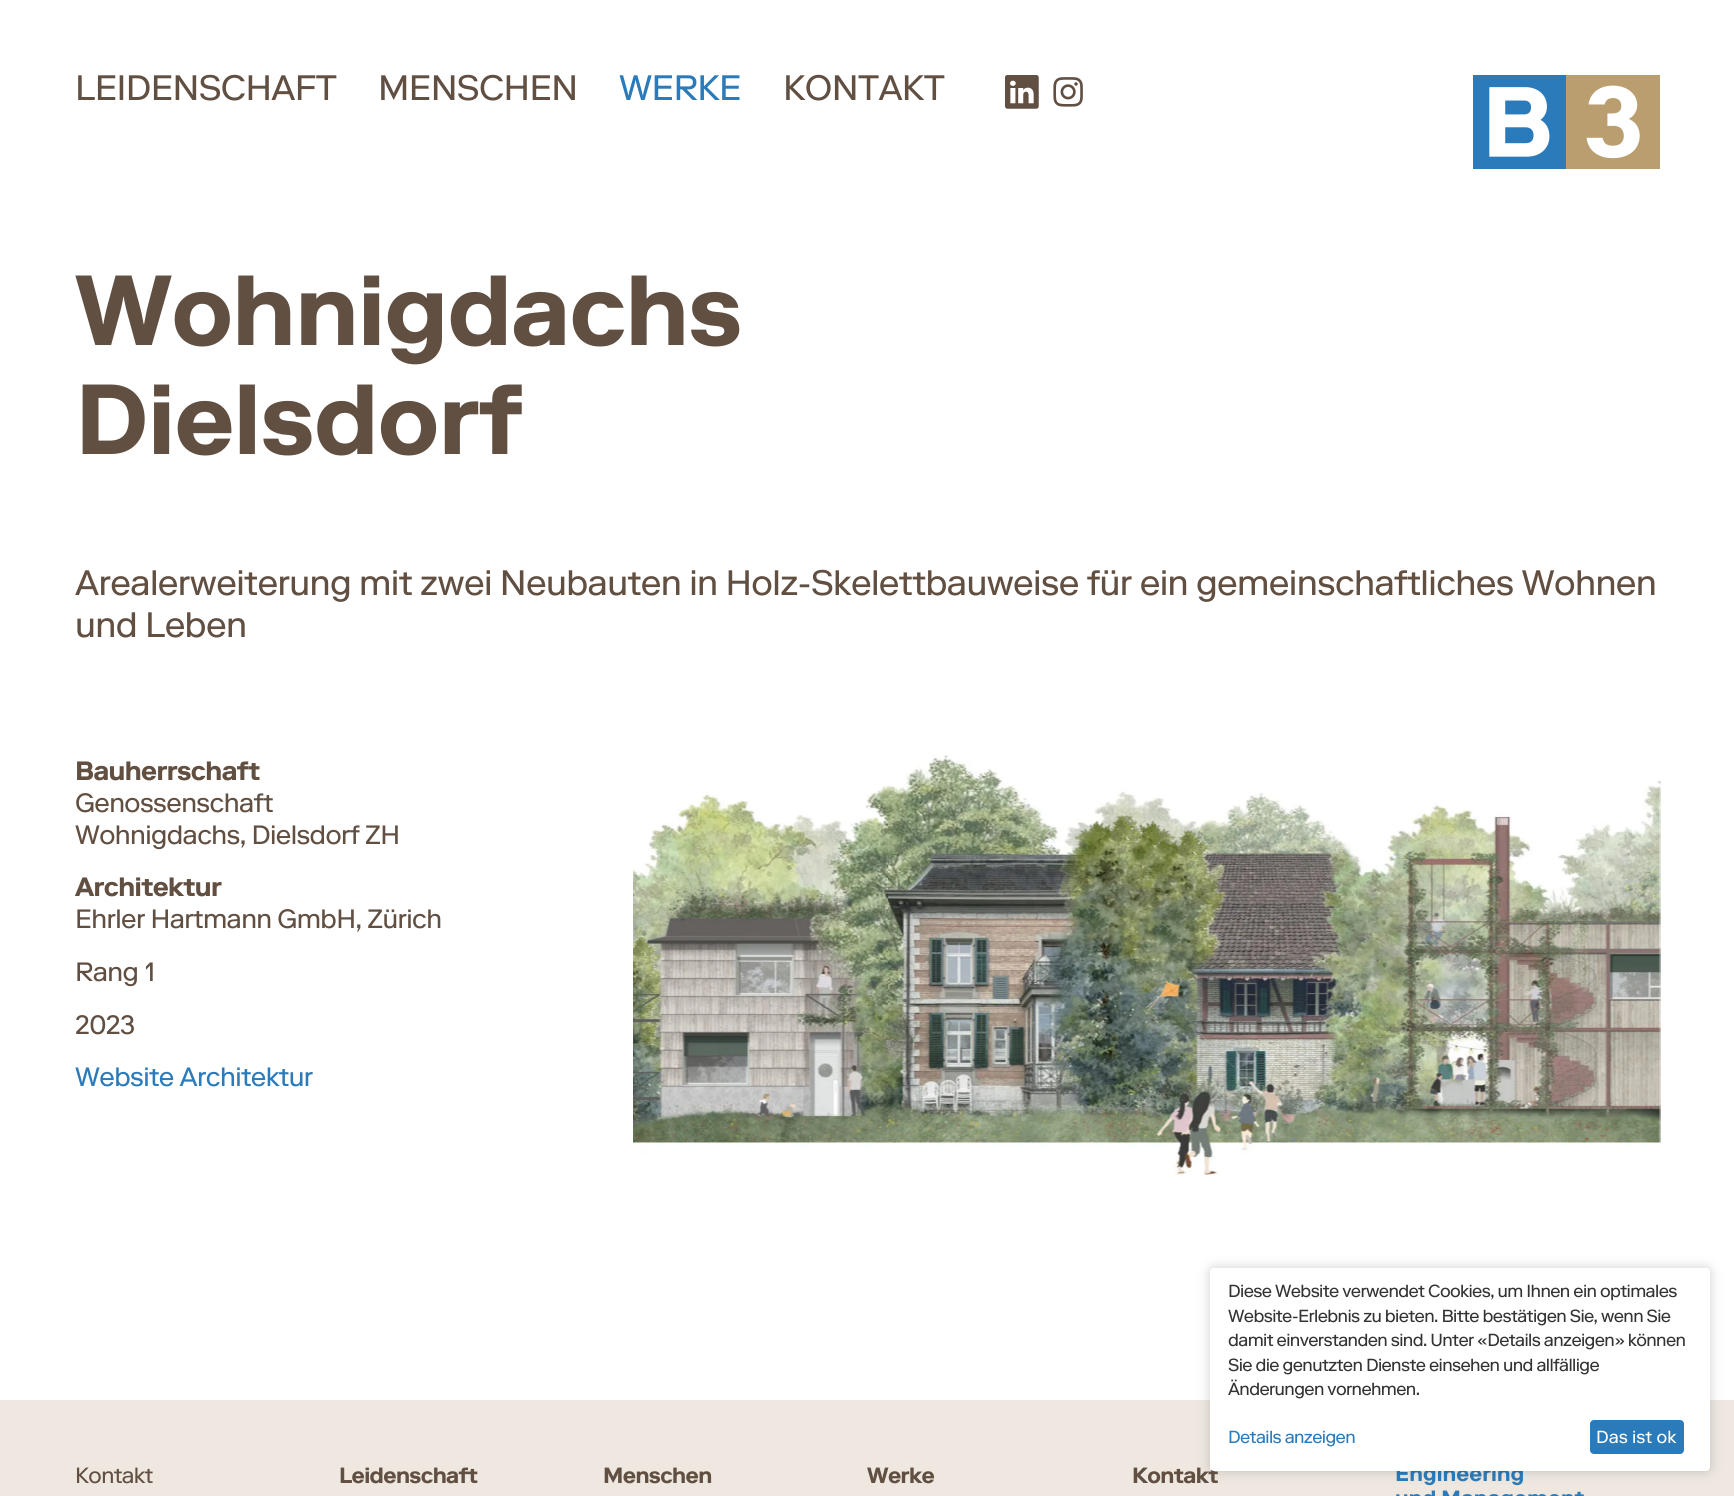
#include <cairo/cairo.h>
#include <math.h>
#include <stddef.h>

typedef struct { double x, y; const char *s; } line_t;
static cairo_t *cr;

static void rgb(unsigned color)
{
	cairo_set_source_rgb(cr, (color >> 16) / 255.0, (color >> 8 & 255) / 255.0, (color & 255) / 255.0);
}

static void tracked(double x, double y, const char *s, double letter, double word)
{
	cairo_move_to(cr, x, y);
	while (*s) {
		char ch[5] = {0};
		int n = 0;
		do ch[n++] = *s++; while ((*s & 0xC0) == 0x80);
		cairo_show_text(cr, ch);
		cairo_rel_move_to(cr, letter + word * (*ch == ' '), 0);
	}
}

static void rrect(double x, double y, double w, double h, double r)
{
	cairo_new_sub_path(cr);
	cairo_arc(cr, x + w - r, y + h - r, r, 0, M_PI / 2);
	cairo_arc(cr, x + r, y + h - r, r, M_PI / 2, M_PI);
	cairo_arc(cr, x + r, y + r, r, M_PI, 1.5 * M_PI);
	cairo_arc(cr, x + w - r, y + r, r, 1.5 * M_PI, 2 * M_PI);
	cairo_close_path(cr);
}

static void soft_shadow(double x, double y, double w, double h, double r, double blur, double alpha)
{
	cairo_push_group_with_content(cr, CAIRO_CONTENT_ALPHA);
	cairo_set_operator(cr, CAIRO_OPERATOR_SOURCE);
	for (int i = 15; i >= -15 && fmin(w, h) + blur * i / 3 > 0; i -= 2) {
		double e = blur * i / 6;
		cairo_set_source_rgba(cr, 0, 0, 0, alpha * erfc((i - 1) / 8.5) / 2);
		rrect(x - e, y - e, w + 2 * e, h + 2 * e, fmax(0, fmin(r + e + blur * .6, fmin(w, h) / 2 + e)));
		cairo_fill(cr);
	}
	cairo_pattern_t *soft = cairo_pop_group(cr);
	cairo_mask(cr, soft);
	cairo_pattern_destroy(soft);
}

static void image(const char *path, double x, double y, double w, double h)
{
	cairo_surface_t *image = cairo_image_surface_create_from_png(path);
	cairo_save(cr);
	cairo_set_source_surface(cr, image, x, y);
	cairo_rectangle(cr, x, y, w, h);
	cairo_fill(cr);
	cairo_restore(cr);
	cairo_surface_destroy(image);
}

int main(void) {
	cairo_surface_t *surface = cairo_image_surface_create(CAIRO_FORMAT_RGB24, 1734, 1496);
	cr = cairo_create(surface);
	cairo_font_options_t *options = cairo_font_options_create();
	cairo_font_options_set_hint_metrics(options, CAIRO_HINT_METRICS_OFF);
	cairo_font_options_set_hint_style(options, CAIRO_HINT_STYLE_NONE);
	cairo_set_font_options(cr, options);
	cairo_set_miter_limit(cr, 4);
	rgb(0xffffff);
	cairo_paint(cr);
	image("img/1.png", 1005, 75, 34, 34);
	image("img/2.png", 1053, 77, 30, 30);
	image("img/3.png", 1473, 75, 187, 94);
	image("img/4.png", 633, 755, 1028, 420);
	rgb(0xeee8e0);
	cairo_rectangle(cr, 0, 1400, 1734, 96);
	cairo_fill(cr);
	image("img/5.png", 1396, 1471, 188, 25);
	rgb(0x000000);
	soft_shadow(1210, 1268, 500, 203, 4, 7.5, 0.1);
	soft_shadow(1210, 1268, 500, 203, 4, 4, 0.1);
	cairo_select_font_face(cr, "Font", CAIRO_FONT_SLANT_NORMAL, CAIRO_FONT_WEIGHT_NORMAL);
	cairo_set_font_size(cr, 35.3);
	rgb(0x614f42);
	tracked(75, 100, "LEIDENSCHAFT", -0.62, 0);
	tracked(378, 100, "MENSCHEN", -0.62, 0);
	rgb(0x2b7bbb);
	tracked(619, 100, "WERKE", -0.62, 0);
	rgb(0x614f42);
	tracked(783, 100, "KONTAKT", -0.62, 0);
	cairo_select_font_face(cr, "Font", CAIRO_FONT_SLANT_NORMAL, CAIRO_FONT_WEIGHT_BOLD);
	cairo_set_font_size(cr, 99.25);
	tracked(75, 345, "Wohnigdachs", -0.62, 0);
	tracked(75, 454, "Dielsdorf", -0.62, 0);
	cairo_select_font_face(cr, "Font", CAIRO_FONT_SLANT_NORMAL, CAIRO_FONT_WEIGHT_NORMAL);
	cairo_set_font_size(cr, 35.3);
	tracked(75, 595, "Arealerweiterung mit zwei Neubauten in Holz-Skelettbauweise für ein gemeinschaftliches Wohnen", -0.62, 0);
	tracked(75, 637, "und Leben", -0.62, 0);
	cairo_select_font_face(cr, "Font", CAIRO_FONT_SLANT_NORMAL, CAIRO_FONT_WEIGHT_BOLD);
	cairo_set_font_size(cr, 26.5);
	tracked(75, 780, "Bauherrschaft", -0.62, 0);
	cairo_select_font_face(cr, "Font", CAIRO_FONT_SLANT_NORMAL, CAIRO_FONT_WEIGHT_NORMAL);
	tracked(75, 812, "Genossenschaft", -0.62, 0);
	tracked(75, 844, "Wohnigdachs, Dielsdorf ZH", -0.62, 0);
	cairo_select_font_face(cr, "Font", CAIRO_FONT_SLANT_NORMAL, CAIRO_FONT_WEIGHT_BOLD);
	tracked(75, 896, "Architektur", -0.62, 0);
	cairo_select_font_face(cr, "Font", CAIRO_FONT_SLANT_NORMAL, CAIRO_FONT_WEIGHT_NORMAL);
	{
		static const line_t items[] = {
			{75, 928, "Ehrler Hartmann GmbH, Zürich"},
			{75, 981, "Rang 1"},
			{75, 1034, "2023"},
		};
		for (size_t i = 0; i < sizeof items / sizeof *items; i++) {
			tracked(items[i].x, items[i].y, items[i].s, -0.62, 0);
		}
	}
	rgb(0x2b7bbb);
	tracked(75, 1086, "Website Architektur", -0.62, 0);
	cairo_set_font_size(cr, 22);
	rgb(0x614f42);
	tracked(75, 1483, "Kontakt", -0.62, 0);
	cairo_select_font_face(cr, "Font", CAIRO_FONT_SLANT_NORMAL, CAIRO_FONT_WEIGHT_BOLD);
	{
		static const line_t items[] = {
			{339, 1483, "Leidenschaft"},
			{603, 1483, "Menschen"},
			{867, 1483, "Werke"},
			{1132, 1483, "Kontakt"},
		};
		for (size_t i = 0; i < sizeof items / sizeof *items; i++) {
			tracked(items[i].x, items[i].y, items[i].s, -0.62, 0);
		}
	}
	rgb(0xffffff);
	rrect(1210, 1268, 500, 203, 4);
	cairo_fill(cr);
	rgb(0x2b7bbb);
	rrect(1590, 1420, 94, 34, 4);
	cairo_fill(cr);
	cairo_select_font_face(cr, "Font", CAIRO_FONT_SLANT_NORMAL, CAIRO_FONT_WEIGHT_NORMAL);
	cairo_set_font_size(cr, 17.5);
	rgb(0xffffff);
	cairo_move_to(cr, 1596, 1443);
	cairo_show_text(cr, "Das ist ok");
	rgb(0x2b7bbb);
	tracked(1228, 1443, "Details anzeigen", -0.62, 0);
	rgb(0x333333);
	{
		static const line_t items[] = {
			{1228, 1395, "Änderungen vornehmen."},
			{1228, 1371, "Sie die genutzten Dienste einsehen und allfällige"},
			{1228, 1346, "damit einverstanden sind. Unter «Details anzeigen» können"},
			{1228, 1322, "Website-Erlebnis zu bieten. Bitte bestätigen Sie, wenn Sie"},
			{1228, 1297, "Diese Website verwendet Cookies, um Ihnen ein optimales"},
		};
		for (size_t i = 0; i < sizeof items / sizeof *items; i++) {
			tracked(items[i].x, items[i].y, items[i].s, -0.62, 0);
		}
	}
	cairo_surface_write_to_png(surface, "page.png");
	cairo_font_options_destroy(options);
	cairo_destroy(cr);
	cairo_surface_destroy(surface);
	return 0;
}
